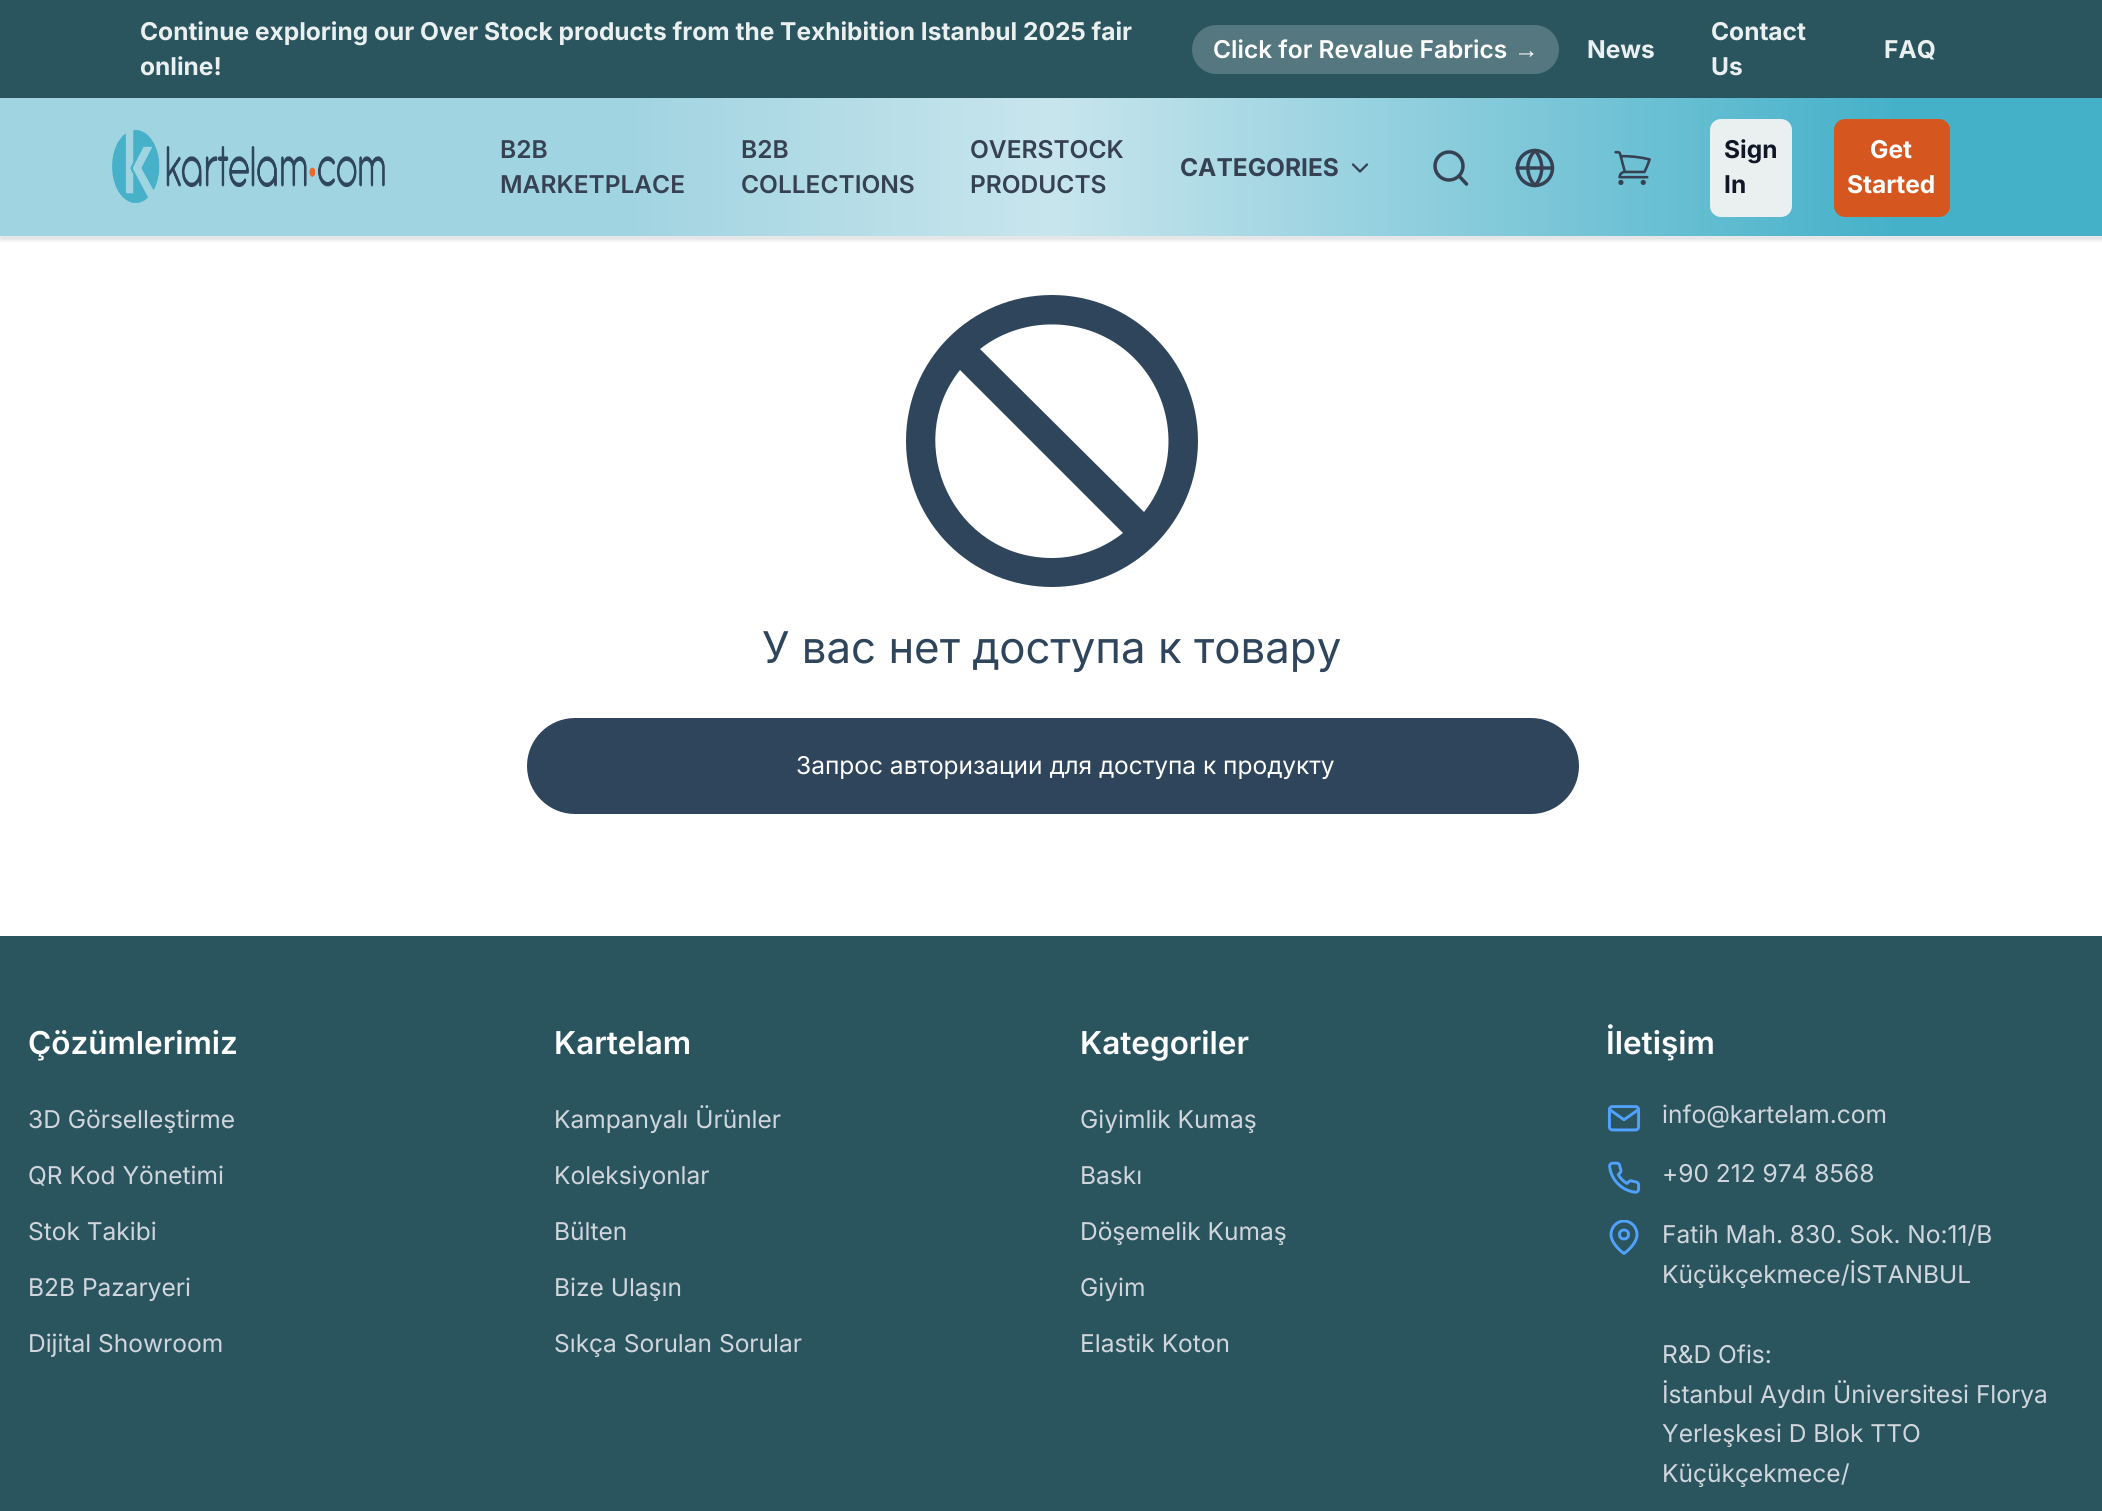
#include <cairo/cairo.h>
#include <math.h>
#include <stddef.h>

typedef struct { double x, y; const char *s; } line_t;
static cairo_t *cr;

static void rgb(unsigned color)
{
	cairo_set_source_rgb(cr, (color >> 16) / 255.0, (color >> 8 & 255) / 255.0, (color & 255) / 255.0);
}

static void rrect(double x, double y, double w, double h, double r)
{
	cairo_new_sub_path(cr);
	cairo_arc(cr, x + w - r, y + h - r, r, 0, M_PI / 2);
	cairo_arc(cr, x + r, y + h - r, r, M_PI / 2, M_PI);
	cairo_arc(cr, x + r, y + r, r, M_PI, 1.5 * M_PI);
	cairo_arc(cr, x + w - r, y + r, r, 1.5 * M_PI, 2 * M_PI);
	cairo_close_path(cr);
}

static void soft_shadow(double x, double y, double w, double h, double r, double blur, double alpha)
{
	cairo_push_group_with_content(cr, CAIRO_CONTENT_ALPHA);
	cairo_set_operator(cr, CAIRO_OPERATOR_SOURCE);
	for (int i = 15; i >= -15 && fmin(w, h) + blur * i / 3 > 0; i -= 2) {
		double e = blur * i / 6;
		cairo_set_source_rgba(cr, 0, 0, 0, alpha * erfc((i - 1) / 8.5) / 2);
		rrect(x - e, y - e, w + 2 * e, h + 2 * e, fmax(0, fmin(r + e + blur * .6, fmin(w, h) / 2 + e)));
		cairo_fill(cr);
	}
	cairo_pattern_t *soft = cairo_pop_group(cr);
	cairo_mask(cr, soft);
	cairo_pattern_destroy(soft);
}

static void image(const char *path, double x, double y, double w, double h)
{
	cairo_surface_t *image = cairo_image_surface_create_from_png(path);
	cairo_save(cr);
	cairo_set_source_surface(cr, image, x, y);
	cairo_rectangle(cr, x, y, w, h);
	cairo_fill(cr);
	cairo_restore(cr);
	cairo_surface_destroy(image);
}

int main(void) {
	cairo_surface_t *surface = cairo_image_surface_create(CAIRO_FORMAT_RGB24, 2102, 1511);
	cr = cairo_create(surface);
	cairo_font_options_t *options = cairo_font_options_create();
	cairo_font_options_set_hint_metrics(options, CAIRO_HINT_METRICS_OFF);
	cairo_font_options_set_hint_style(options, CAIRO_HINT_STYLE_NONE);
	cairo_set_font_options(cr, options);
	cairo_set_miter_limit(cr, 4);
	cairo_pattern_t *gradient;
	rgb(0xffffff);
	cairo_paint(cr);
	rgb(0x2a555f);
	cairo_rectangle(cr, 0, 0, 2102, 98);
	cairo_fill(cr);
	rgb(0x55777f);
	rrect(1192, 25, 367, 49, 24.5);
	cairo_fill(cr);
	rgb(0x000000);
	soft_shadow(2, 102, 2100, 136, 0, 2, 0.1);
	soft_shadow(0, 100, 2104, 140, 0, 2.5, 0.1);
	gradient = cairo_pattern_create_linear(0, 167, 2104, 167);
	cairo_pattern_add_color_stop_rgba(gradient, 0.3, 0.631, 0.831, 0.882, 1);
	cairo_pattern_add_color_stop_rgba(gradient, 0.5, 0.784, 0.898, 0.929, 1);
	cairo_pattern_add_color_stop_rgba(gradient, 0.9, 0.271, 0.694, 0.788, 1);
	cairo_set_source(cr, gradient);
	cairo_pattern_destroy(gradient);
	cairo_rectangle(cr, 0, 98, 2102, 138);
	cairo_fill(cr);
	rgb(0xe5e7eb);
	cairo_rectangle(cr, 0, 236, 2102, 2);
	cairo_fill(cr);
	image("img/1.png", 112, 129, 273, 74);
	cairo_new_path(cr);
	cairo_move_to(cr, 1353, 164.5);
	cairo_line_to(cr, 1360, 171.5);
	cairo_line_to(cr, 1367, 164.5);
	rgb(0x364153);
	cairo_set_line_width(cr, 2.3);
	cairo_set_line_cap(cr, CAIRO_LINE_CAP_ROUND);
	cairo_set_line_join(cr, CAIRO_LINE_JOIN_ROUND);
	cairo_stroke(cr);
	cairo_new_path(cr);
	cairo_move_to(cr, 1466.5, 184);
	cairo_line_to(cr, 1459, 176);
	cairo_set_line_width(cr, 3.5);
	cairo_stroke(cr);
	cairo_arc(cr, 1449, 166, 14, 0, 2 * M_PI);
	cairo_set_line_cap(cr, CAIRO_LINE_CAP_BUTT);
	cairo_set_line_join(cr, CAIRO_LINE_JOIN_MITER);
	cairo_stroke(cr);
	cairo_arc(cr, 1535, 168, 17.5, 0, 2 * M_PI);
	cairo_stroke(cr);
	cairo_new_path(cr);
	cairo_move_to(cr, 1535, 150.5);
	cairo_curve_to(cr, 1525.5, 160.5, 1525.5, 175.5, 1535, 185.5);
	cairo_curve_to(cr, 1544, 175.5, 1544, 160.5, 1535, 150.5);
	cairo_move_to(cr, 1517, 168);
	cairo_line_to(cr, 1552, 168);
	cairo_set_line_cap(cr, CAIRO_LINE_CAP_ROUND);
	cairo_set_line_join(cr, CAIRO_LINE_JOIN_ROUND);
	cairo_stroke(cr);
	image("img/2.png", 1614, 150, 37, 35);
	rgb(0xeaefef);
	rrect(1710, 119, 82, 98, 11);
	cairo_fill(cr);
	rgb(0xd5571f);
	rrect(1834, 119, 116, 98, 11);
	cairo_fill(cr);
	rgb(0x2f455c);
	cairo_new_path(cr);
	cairo_move_to(cr, 1052, 295);
	cairo_curve_to(cr, 971, 295, 906, 360, 906, 441);
	cairo_curve_to(cr, 906, 522, 971, 587, 1052, 587);
	cairo_curve_to(cr, 1132, 587, 1198, 522, 1198, 441);
	cairo_curve_to(cr, 1198, 360, 1132, 295, 1052, 295);
	cairo_close_path(cr);
	cairo_move_to(cr, 1052, 558);
	cairo_curve_to(cr, 954, 558, 901, 444, 960, 370);
	cairo_line_to(cr, 1123, 533);
	cairo_curve_to(cr, 1104, 548, 1079, 558, 1052, 558);
	cairo_close_path(cr);
	cairo_move_to(cr, 1144, 512);
	cairo_line_to(cr, 980, 349);
	cairo_curve_to(cr, 1026, 313, 1093, 317, 1134, 358);
	cairo_curve_to(cr, 1176, 400, 1180, 467, 1144, 512);
	cairo_close_path(cr);
	cairo_fill(cr);
	rrect(527, 718, 1052, 96, 48);
	cairo_fill(cr);
	rgb(0x2a555f);
	cairo_rectangle(cr, 0, 936, 2102, 575);
	cairo_fill(cr);
	image("img/3.png", 1607, 1105, 34, 27);
	image("img/4.png", 1608, 1161, 33, 33);
	cairo_save(cr);
	cairo_rectangle(cr, 1607, 1220, 35, 35);
	cairo_clip(cr);
	cairo_new_path(cr);
	cairo_move_to(cr, 1637, 1234.5);
	cairo_curve_to(cr, 1637, 1244.5, 1624, 1253.5, 1624, 1253.5);
	cairo_curve_to(cr, 1624, 1253.5, 1611, 1244.5, 1611, 1234.5);
	cairo_curve_to(cr, 1611, 1227, 1617, 1221, 1624, 1221);
	cairo_curve_to(cr, 1631, 1221, 1637, 1227, 1637, 1234.5);
	cairo_close_path(cr);
	rgb(0x51a2ff);
	cairo_set_line_width(cr, 2.9);
	cairo_stroke(cr);
	cairo_restore(cr);
	cairo_arc(cr, 1624, 1234.5, 4.5, 0, 2 * M_PI);
	rgb(0x51a2ff);
	cairo_set_line_width(cr, 2.9);
	cairo_set_line_cap(cr, CAIRO_LINE_CAP_BUTT);
	cairo_set_line_join(cr, CAIRO_LINE_JOIN_MITER);
	cairo_stroke(cr);
	cairo_select_font_face(cr, "Inter", CAIRO_FONT_SLANT_NORMAL, CAIRO_FONT_WEIGHT_BOLD);
	cairo_set_font_size(cr, 24.5);
	rgb(0xeaefef);
	cairo_move_to(cr, 140, 40);
	cairo_show_text(cr, "Continue exploring our Over Stock products from the Texhibition Istanbul 2025 fair");
	cairo_move_to(cr, 140, 75);
	cairo_show_text(cr, "online!");
	cairo_select_font_face(cr, "Inter SemiBold", CAIRO_FONT_SLANT_NORMAL, CAIRO_FONT_WEIGHT_NORMAL);
	rgb(0xffffff);
	cairo_move_to(cr, 1213, 58);
	cairo_show_text(cr, "Click for Revalue Fabrics");
	cairo_select_font_face(cr, "Liberation Sans", CAIRO_FONT_SLANT_NORMAL, CAIRO_FONT_WEIGHT_BOLD);
	cairo_move_to(cr, 1514, 58);
	cairo_show_text(cr, "→");
	cairo_select_font_face(cr, "Inter", CAIRO_FONT_SLANT_NORMAL, CAIRO_FONT_WEIGHT_BOLD);
	rgb(0xeaefef);
	{
		static const line_t items[] = {
			{1587, 58, "News"},
			{1711, 40, "Contact"},
			{1711, 75, "Us"},
			{1884, 58, "FAQ"},
		};
		for (size_t i = 0; i < sizeof items / sizeof *items; i++) {
			cairo_move_to(cr, items[i].x, items[i].y);
			cairo_show_text(cr, items[i].s);
		}
	}
	cairo_select_font_face(cr, "Inter SemiBold", CAIRO_FONT_SLANT_NORMAL, CAIRO_FONT_WEIGHT_NORMAL);
	rgb(0x364153);
	{
		static const line_t items[] = {
			{500, 158, "B2B"},
			{500, 193, "MARKETPLACE"},
			{741, 158, "B2B"},
			{741, 193, "COLLECTIONS"},
			{970, 158, "OVERSTOCK"},
			{970, 193, "PRODUCTS"},
		};
		for (size_t i = 0; i < sizeof items / sizeof *items; i++) {
			cairo_move_to(cr, items[i].x, items[i].y);
			cairo_show_text(cr, items[i].s);
		}
	}
	cairo_select_font_face(cr, "Inter", CAIRO_FONT_SLANT_NORMAL, CAIRO_FONT_WEIGHT_BOLD);
	cairo_move_to(cr, 1180, 176);
	cairo_show_text(cr, "CATEGORIES");
	rgb(0x101828);
	cairo_move_to(cr, 1724, 158);
	cairo_show_text(cr, "Sign");
	cairo_move_to(cr, 1724, 193);
	cairo_show_text(cr, "In");
	rgb(0xffffff);
	cairo_move_to(cr, 1870, 158);
	cairo_show_text(cr, "Get");
	cairo_move_to(cr, 1847, 193);
	cairo_show_text(cr, "Started");
	cairo_select_font_face(cr, "Inter", CAIRO_FONT_SLANT_NORMAL, CAIRO_FONT_WEIGHT_NORMAL);
	cairo_set_font_size(cr, 43.75);
	rgb(0x2f455c);
	cairo_move_to(cr, 762, 663);
	cairo_show_text(cr, "У вас нет доступа к товару");
	cairo_set_font_size(cr, 24.5);
	rgb(0xffffff);
	cairo_move_to(cr, 796, 774);
	cairo_show_text(cr, "Запрос авторизации для доступа к продукту");
	cairo_select_font_face(cr, "Inter SemiBold", CAIRO_FONT_SLANT_NORMAL, CAIRO_FONT_WEIGHT_NORMAL);
	cairo_set_font_size(cr, 31.5);
	cairo_move_to(cr, 28, 1054);
	cairo_show_text(cr, "Çözümlerimiz");
	cairo_select_font_face(cr, "Inter", CAIRO_FONT_SLANT_NORMAL, CAIRO_FONT_WEIGHT_NORMAL);
	cairo_set_font_size(cr, 24.5);
	rgb(0xd1d5dc);
	{
		static const line_t items[] = {
			{28, 1128, "3D Görselleştirme"},
			{28, 1184, "QR Kod Yönetimi"},
			{28, 1240, "Stok Takibi"},
			{28, 1296, "B2B Pazaryeri"},
			{28, 1352, "Dijital Showroom"},
		};
		for (size_t i = 0; i < sizeof items / sizeof *items; i++) {
			cairo_move_to(cr, items[i].x, items[i].y);
			cairo_show_text(cr, items[i].s);
		}
	}
	cairo_select_font_face(cr, "Inter SemiBold", CAIRO_FONT_SLANT_NORMAL, CAIRO_FONT_WEIGHT_NORMAL);
	cairo_set_font_size(cr, 31.5);
	rgb(0xffffff);
	cairo_move_to(cr, 554, 1054);
	cairo_show_text(cr, "Kartelam");
	cairo_select_font_face(cr, "Inter", CAIRO_FONT_SLANT_NORMAL, CAIRO_FONT_WEIGHT_NORMAL);
	cairo_set_font_size(cr, 24.5);
	rgb(0xd1d5dc);
	{
		static const line_t items[] = {
			{554, 1128, "Kampanyalı Ürünler"},
			{554, 1184, "Koleksiyonlar"},
			{554, 1240, "Bülten"},
			{554, 1296, "Bize Ulaşın"},
			{554, 1352, "Sıkça Sorulan Sorular"},
		};
		for (size_t i = 0; i < sizeof items / sizeof *items; i++) {
			cairo_move_to(cr, items[i].x, items[i].y);
			cairo_show_text(cr, items[i].s);
		}
	}
	cairo_select_font_face(cr, "Inter SemiBold", CAIRO_FONT_SLANT_NORMAL, CAIRO_FONT_WEIGHT_NORMAL);
	cairo_set_font_size(cr, 31.5);
	rgb(0xffffff);
	cairo_move_to(cr, 1080, 1054);
	cairo_show_text(cr, "Kategoriler");
	cairo_select_font_face(cr, "Inter", CAIRO_FONT_SLANT_NORMAL, CAIRO_FONT_WEIGHT_NORMAL);
	cairo_set_font_size(cr, 24.5);
	rgb(0xd1d5dc);
	{
		static const line_t items[] = {
			{1080, 1128, "Giyimlik Kumaş"},
			{1080, 1184, "Baskı"},
			{1080, 1240, "Döşemelik Kumaş"},
			{1080, 1296, "Giyim"},
			{1080, 1352, "Elastik Koton"},
		};
		for (size_t i = 0; i < sizeof items / sizeof *items; i++) {
			cairo_move_to(cr, items[i].x, items[i].y);
			cairo_show_text(cr, items[i].s);
		}
	}
	cairo_select_font_face(cr, "Inter SemiBold", CAIRO_FONT_SLANT_NORMAL, CAIRO_FONT_WEIGHT_NORMAL);
	cairo_set_font_size(cr, 31.5);
	rgb(0xffffff);
	cairo_move_to(cr, 1606, 1054);
	cairo_show_text(cr, "İletişim");
	cairo_select_font_face(cr, "Inter", CAIRO_FONT_SLANT_NORMAL, CAIRO_FONT_WEIGHT_NORMAL);
	cairo_set_font_size(cr, 24.5);
	rgb(0xd1d5dc);
	{
		static const line_t items[] = {
			{1662, 1123, "info@kartelam.com"},
			{1662, 1182, "+90 212 974 8568"},
			{1662, 1243, "Fatih Mah. 830. Sok. No:11/B"},
			{1662, 1283, "Küçükçekmece/İSTANBUL"},
			{1662, 1363, "R&D Ofis:"},
			{1662, 1403, "İstanbul Aydın Üniversitesi Florya"},
			{1662, 1442, "Yerleşkesi D Blok TTO"},
			{1662, 1482, "Küçükçekmece/"},
		};
		for (size_t i = 0; i < sizeof items / sizeof *items; i++) {
			cairo_move_to(cr, items[i].x, items[i].y);
			cairo_show_text(cr, items[i].s);
		}
	}
	cairo_surface_write_to_png(surface, "page.png");
	cairo_font_options_destroy(options);
	cairo_destroy(cr);
	cairo_surface_destroy(surface);
	return 0;
}
